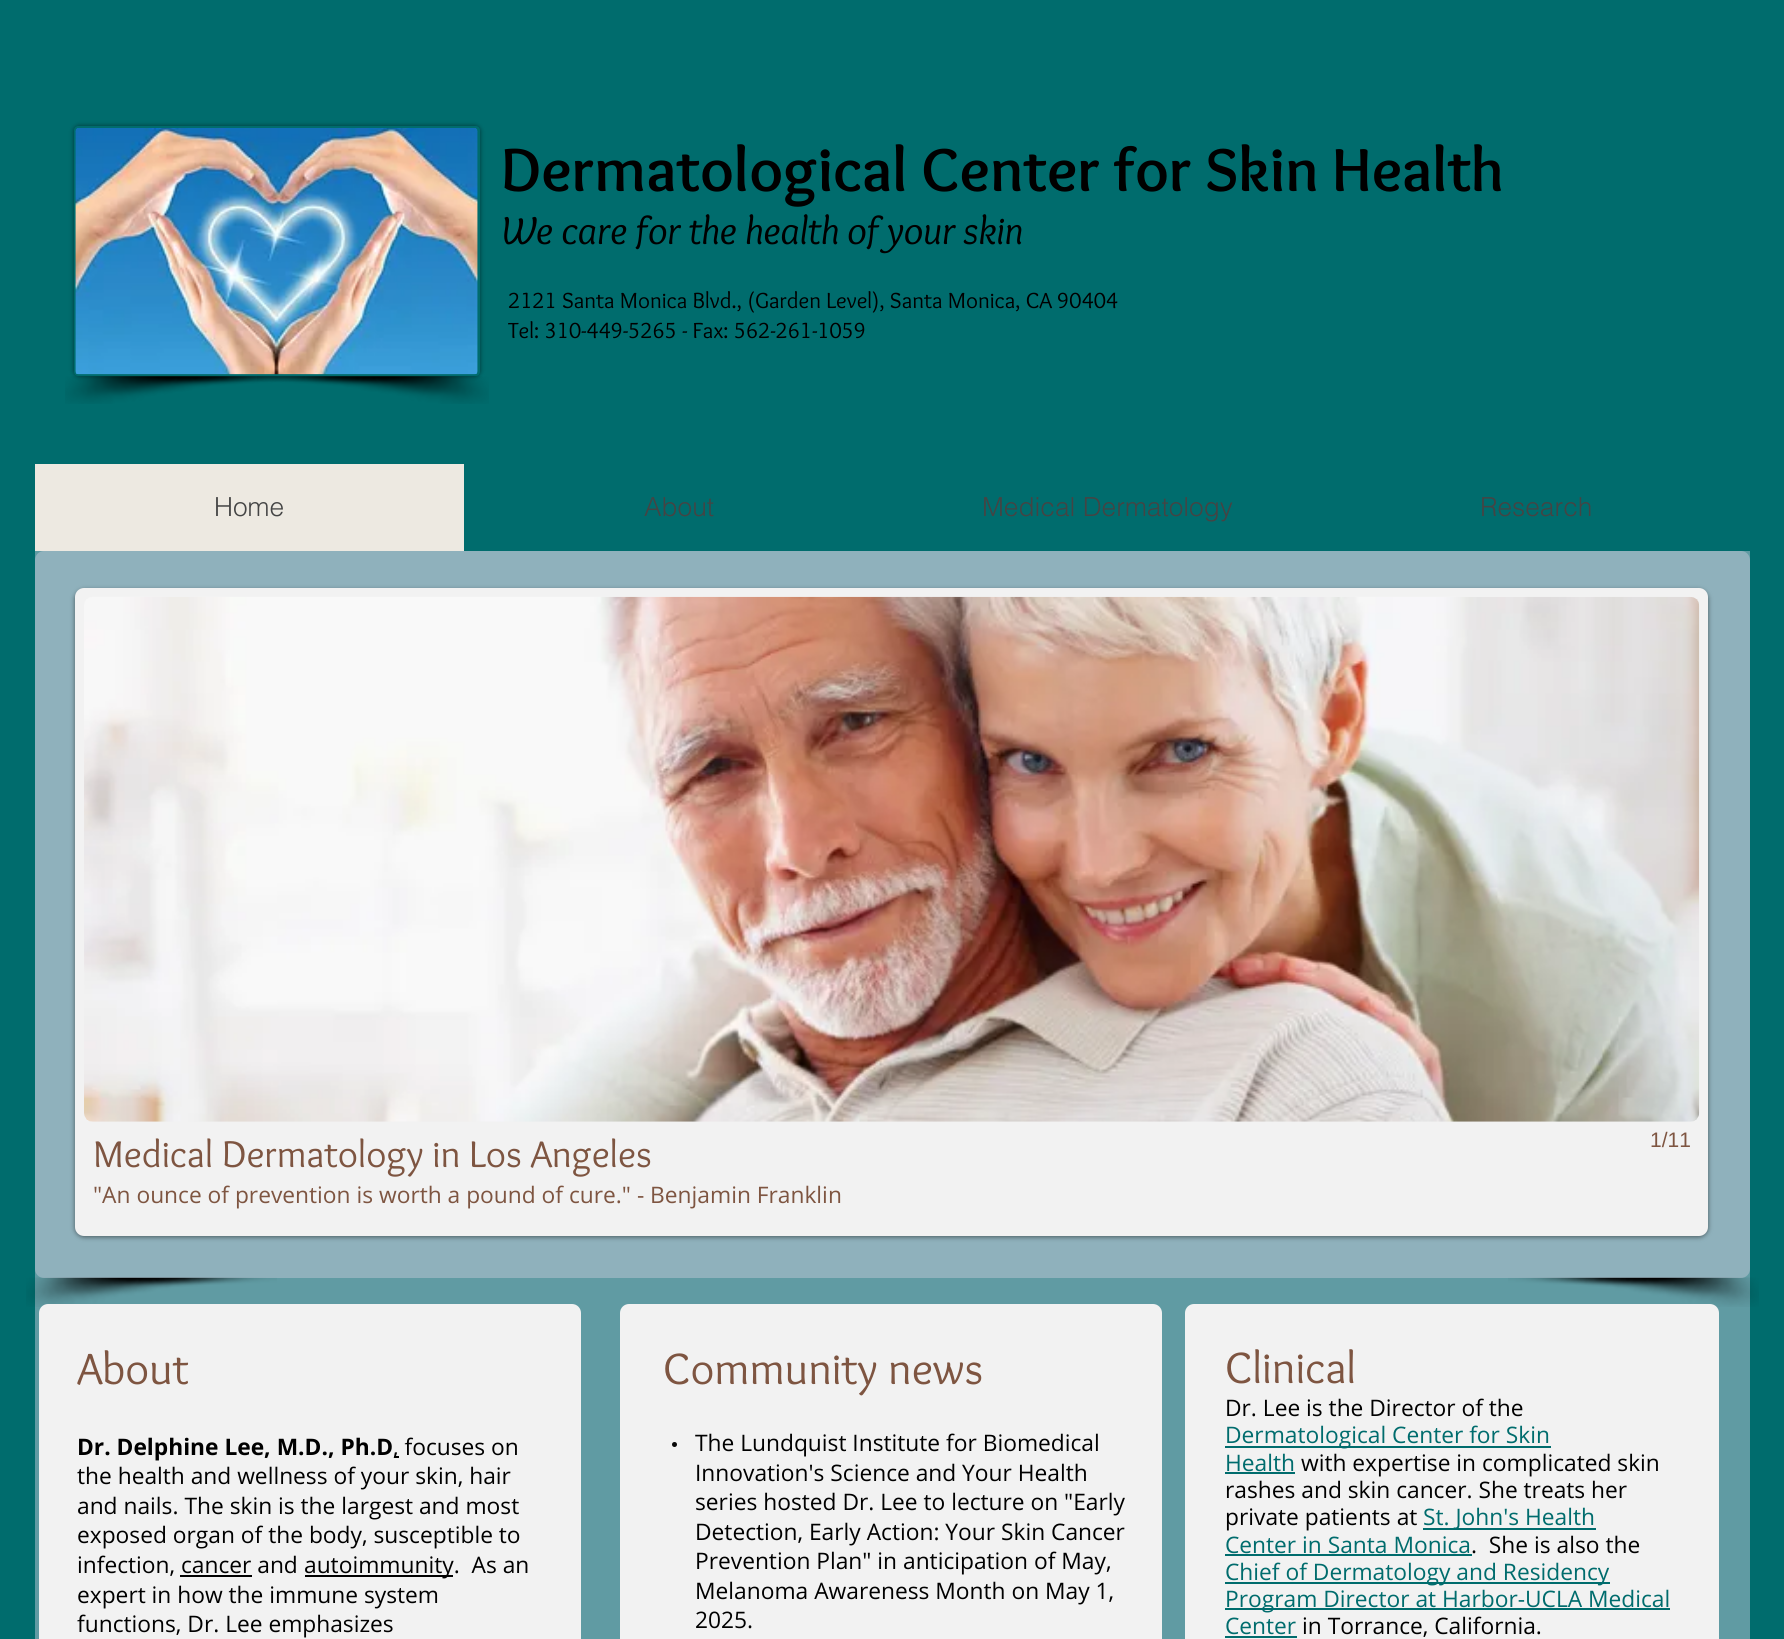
#include <cairo/cairo.h>
#include <math.h>
#include <stddef.h>

typedef struct { double x, y; const char *s; } line_t;
typedef struct { double x, y, w, h; unsigned color; } box_t;
static cairo_t *cr;

static void rgb(unsigned color)
{
	cairo_set_source_rgb(cr, (color >> 16) / 255.0, (color >> 8 & 255) / 255.0, (color & 255) / 255.0);
}

static void rrect(double x, double y, double w, double h, double r)
{
	cairo_new_sub_path(cr);
	cairo_arc(cr, x + w - r, y + h - r, r, 0, M_PI / 2);
	cairo_arc(cr, x + r, y + h - r, r, M_PI / 2, M_PI);
	cairo_arc(cr, x + r, y + r, r, M_PI, 1.5 * M_PI);
	cairo_arc(cr, x + w - r, y + r, r, 1.5 * M_PI, 2 * M_PI);
	cairo_close_path(cr);
}

static void soft_shadow(double x, double y, double w, double h, double r, double blur, double alpha)
{
	cairo_push_group_with_content(cr, CAIRO_CONTENT_ALPHA);
	cairo_set_operator(cr, CAIRO_OPERATOR_SOURCE);
	for (int i = 15; i >= -15 && fmin(w, h) + blur * i / 3 > 0; i -= 2) {
		double e = blur * i / 6;
		cairo_set_source_rgba(cr, 0, 0, 0, alpha * erfc((i - 1) / 8.5) / 2);
		rrect(x - e, y - e, w + 2 * e, h + 2 * e, fmax(0, fmin(r + e + blur * .6, fmin(w, h) / 2 + e)));
		cairo_fill(cr);
	}
	cairo_pattern_t *soft = cairo_pop_group(cr);
	cairo_mask(cr, soft);
	cairo_pattern_destroy(soft);
}

static void image(const char *path, double x, double y, double w, double h)
{
	cairo_surface_t *image = cairo_image_surface_create_from_png(path);
	cairo_save(cr);
	cairo_set_source_surface(cr, image, x, y);
	cairo_rectangle(cr, x, y, w, h);
	cairo_fill(cr);
	cairo_restore(cr);
	cairo_surface_destroy(image);
}

int main(void) {
	cairo_surface_t *surface = cairo_image_surface_create(CAIRO_FORMAT_RGB24, 1784, 1639);
	cr = cairo_create(surface);
	cairo_font_options_t *options = cairo_font_options_create();
	cairo_font_options_set_hint_metrics(options, CAIRO_HINT_METRICS_OFF);
	cairo_font_options_set_hint_style(options, CAIRO_HINT_STYLE_NONE);
	cairo_set_font_options(cr, options);
	cairo_set_miter_limit(cr, 4);
	rgb(0x006c6d);
	cairo_paint(cr);
	cairo_save(cr);
	cairo_set_fill_rule(cr, CAIRO_FILL_RULE_EVEN_ODD);
	cairo_new_path(cr);
	cairo_move_to(cr, 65, 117);
	cairo_line_to(cr, 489, 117);
	cairo_line_to(cr, 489, 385);
	cairo_line_to(cr, 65, 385);
	cairo_close_path(cr);
	cairo_move_to(cr, 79, 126);
	cairo_line_to(cr, 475, 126);
	cairo_curve_to(cr, 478, 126, 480, 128, 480, 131);
	cairo_line_to(cr, 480, 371);
	cairo_curve_to(cr, 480, 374, 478, 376, 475, 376);
	cairo_line_to(cr, 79, 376);
	cairo_curve_to(cr, 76, 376, 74, 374, 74, 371);
	cairo_line_to(cr, 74, 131);
	cairo_curve_to(cr, 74, 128, 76, 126, 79, 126);
	cairo_close_path(cr);
	cairo_clip(cr);
	rgb(0x000000);
	soft_shadow(74, 126, 406, 250, 5, 2.5, 0.5);
	cairo_restore(cr);
	image("img/1.png", 75, 128, 403, 247);
	image("img/2.png", 65, 376, 240, 28);
	image("img/3.png", 257, 376, 232, 28);
	rgb(0xede9e1);
	cairo_rectangle(cr, 35, 464, 429, 87);
	cairo_fill(cr);
	rgb(0x609ba3);
	cairo_rectangle(cr, 35, 551, 1715, 1088);
	cairo_fill(cr);
	image("img/5.png", 26, 1277, 251, 30);
	image("img/6.png", 1508, 1277, 251, 30);
	cairo_set_source_rgba(cr, 0.749, 0.784, 0.843, 0.5);
	rrect(35, 551, 1715, 727, 9);
	cairo_fill(cr);
	rgb(0x000000);
	soft_shadow(75, 590, 1633, 647, 9, 2.5, 0.5);
	rgb(0xf2f2f2);
	rrect(75, 588, 1633, 648, 9);
	cairo_fill(cr);
	image("img/4.png", 84, 596, 1616, 526);
	rrect(39, 1304, 542, 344, 9);
	cairo_fill(cr);
	{
		static const box_t items[] = {
			{394, 1456, 5, 2, 0x000000},
			{180, 1575, 72, 2, 0x000000},
			{305, 1575, 148, 2, 0x000000},
		};
		for (size_t i = 0; i < sizeof items / sizeof *items; i++) {
			rgb(items[i].color);
			cairo_rectangle(cr, items[i].x, items[i].y, items[i].w, items[i].h);
			cairo_fill(cr);
		}
	}
	rgb(0xf2f2f2);
	rrect(620, 1304, 542, 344, 9);
	cairo_fill(cr);
	rgb(0x080808);
	cairo_arc(cr, 674.5, 1444.5, 2.5, 0, 2 * M_PI);
	cairo_fill(cr);
	rgb(0xf2f2f2);
	rrect(1185, 1304, 534, 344, 9);
	cairo_fill(cr);
	{
		static const box_t items[] = {
			{1225, 1446, 326, 2, 0x006c6d},
			{1225, 1472, 70, 2, 0x006c6d},
			{1423, 1528, 173, 2, 0x006c6d},
			{1225, 1554, 247, 2, 0x006c6d},
			{1225, 1582, 385, 2, 0x006c6d},
			{1225, 1608, 445, 2, 0x006c6d},
			{1225, 1636, 72, 2, 0x006c6d},
		};
		for (size_t i = 0; i < sizeof items / sizeof *items; i++) {
			rgb(items[i].color);
			cairo_rectangle(cr, items[i].x, items[i].y, items[i].w, items[i].h);
			cairo_fill(cr);
		}
	}
	cairo_select_font_face(cr, "Overlock", CAIRO_FONT_SLANT_NORMAL, CAIRO_FONT_WEIGHT_BOLD);
	cairo_set_font_size(cr, 63);
	rgb(0x000000);
	cairo_move_to(cr, 501, 191);
	cairo_show_text(cr, "Dermatological Center for Skin Health");
	cairo_select_font_face(cr, "Overlock", CAIRO_FONT_SLANT_ITALIC, CAIRO_FONT_WEIGHT_NORMAL);
	cairo_set_font_size(cr, 40.25);
	cairo_move_to(cr, 501, 244);
	cairo_show_text(cr, "We care for the health of your skin");
	cairo_select_font_face(cr, "Overlock", CAIRO_FONT_SLANT_NORMAL, CAIRO_FONT_WEIGHT_NORMAL);
	cairo_set_font_size(cr, 22.75);
	cairo_move_to(cr, 508, 308);
	cairo_show_text(cr, "2121 Santa Monica Blvd., (Garden Level), Santa Monica, CA 90404");
	cairo_move_to(cr, 508, 338);
	cairo_show_text(cr, "Tel: 310-449-5265 - Fax: 562-261-1059");
	cairo_select_font_face(cr, "helvetica Light", CAIRO_FONT_SLANT_NORMAL, CAIRO_FONT_WEIGHT_NORMAL);
	cairo_set_font_size(cr, 26.25);
	rgb(0x444444);
	{
		static const line_t items[] = {
			{214, 516, "Home"},
			{644, 516, "About"},
			{982, 516, "Medical Dermatology"},
			{1480, 516, "Research"},
		};
		for (size_t i = 0; i < sizeof items / sizeof *items; i++) {
			cairo_move_to(cr, items[i].x, items[i].y);
			cairo_show_text(cr, items[i].s);
		}
	}
	cairo_select_font_face(cr, "Overlock", CAIRO_FONT_SLANT_NORMAL, CAIRO_FONT_WEIGHT_NORMAL);
	cairo_set_font_size(cr, 38.5);
	rgb(0x7e5541);
	cairo_move_to(cr, 93, 1167);
	cairo_show_text(cr, "Medical Dermatology in Los Angeles");
	cairo_select_font_face(cr, "Open Sans", CAIRO_FONT_SLANT_NORMAL, CAIRO_FONT_WEIGHT_NORMAL);
	cairo_set_font_size(cr, 22.75);
	cairo_move_to(cr, 93, 1203);
	cairo_show_text(cr, "\"An ounce of prevention is worth a pound of cure.\" - Benjamin Franklin");
	cairo_select_font_face(cr, "Liberation Sans", CAIRO_FONT_SLANT_NORMAL, CAIRO_FONT_WEIGHT_NORMAL);
	cairo_set_font_size(cr, 21);
	cairo_move_to(cr, 1650, 1147);
	cairo_show_text(cr, "1/11");
	cairo_select_font_face(cr, "Overlock", CAIRO_FONT_SLANT_NORMAL, CAIRO_FONT_WEIGHT_NORMAL);
	cairo_set_font_size(cr, 45.5);
	cairo_move_to(cr, 77, 1384);
	cairo_show_text(cr, "About");
	cairo_select_font_face(cr, "Open Sans", CAIRO_FONT_SLANT_NORMAL, CAIRO_FONT_WEIGHT_BOLD);
	cairo_set_font_size(cr, 22.75);
	rgb(0x000000);
	cairo_move_to(cr, 77, 1455);
	cairo_show_text(cr, "Dr. Delphine Lee, M.D., Ph.D");
	cairo_select_font_face(cr, "Open Sans", CAIRO_FONT_SLANT_NORMAL, CAIRO_FONT_WEIGHT_NORMAL);
	{
		static const line_t items[] = {
			{393, 1455, ", focuses on"},
			{77, 1484, "the health and wellness of your skin, hair"},
			{77, 1514, "and nails. The skin is the largest and most"},
			{77, 1543, "exposed organ of the body, susceptible to"},
			{77, 1573, "infection, cancer and"},
			{304, 1573, "autoimmunity.  As an"},
			{77, 1603, "expert in how the immune system"},
			{77, 1632, "functions, Dr. Lee emphasizes"},
		};
		for (size_t i = 0; i < sizeof items / sizeof *items; i++) {
			cairo_move_to(cr, items[i].x, items[i].y);
			cairo_show_text(cr, items[i].s);
		}
	}
	cairo_select_font_face(cr, "Overlock", CAIRO_FONT_SLANT_NORMAL, CAIRO_FONT_WEIGHT_NORMAL);
	cairo_set_font_size(cr, 45.5);
	rgb(0x7e5541);
	cairo_move_to(cr, 663, 1384);
	cairo_show_text(cr, "Community news");
	cairo_select_font_face(cr, "Open Sans", CAIRO_FONT_SLANT_NORMAL, CAIRO_FONT_WEIGHT_NORMAL);
	cairo_set_font_size(cr, 22.75);
	rgb(0x000000);
	{
		static const line_t items[] = {
			{695, 1451, "The Lundquist Institute for Biomedical"},
			{695, 1481, "Innovation's Science and Your Health"},
			{695, 1510, "series hosted Dr. Lee to lecture on \"Early"},
			{695, 1540, "Detection, Early Action: Your Skin Cancer"},
			{695, 1569, "Prevention Plan\" in anticipation of May,"},
			{695, 1599, "Melanoma Awareness Month on May 1,"},
			{695, 1628, "2025."},
		};
		for (size_t i = 0; i < sizeof items / sizeof *items; i++) {
			cairo_move_to(cr, items[i].x, items[i].y);
			cairo_show_text(cr, items[i].s);
		}
	}
	cairo_select_font_face(cr, "Overlock", CAIRO_FONT_SLANT_NORMAL, CAIRO_FONT_WEIGHT_NORMAL);
	cairo_set_font_size(cr, 45.5);
	rgb(0x7e5541);
	cairo_move_to(cr, 1225, 1383);
	cairo_show_text(cr, "Clinical");
	cairo_select_font_face(cr, "Open Sans", CAIRO_FONT_SLANT_NORMAL, CAIRO_FONT_WEIGHT_NORMAL);
	cairo_set_font_size(cr, 22.75);
	rgb(0x000000);
	cairo_move_to(cr, 1225, 1416);
	cairo_show_text(cr, "Dr. Lee is the Director of the");
	rgb(0x006c6d);
	cairo_move_to(cr, 1225, 1443);
	cairo_show_text(cr, "Dermatological Center for Skin");
	cairo_move_to(cr, 1225, 1471);
	cairo_show_text(cr, "Health");
	rgb(0x000000);
	{
		static const line_t items[] = {
			{1301, 1471, "with expertise in complicated skin"},
			{1225, 1498, "rashes and skin cancer. She treats her"},
			{1225, 1525, "private patients at"},
		};
		for (size_t i = 0; i < sizeof items / sizeof *items; i++) {
			cairo_move_to(cr, items[i].x, items[i].y);
			cairo_show_text(cr, items[i].s);
		}
	}
	rgb(0x006c6d);
	cairo_move_to(cr, 1423, 1525);
	cairo_show_text(cr, "St. John's Health");
	cairo_move_to(cr, 1225, 1553);
	cairo_show_text(cr, "Center in Santa Monica");
	rgb(0x000000);
	cairo_move_to(cr, 1471, 1553);
	cairo_show_text(cr, ".  She is also the");
	rgb(0x006c6d);
	{
		static const line_t items[] = {
			{1225, 1580, "Chief of Dermatology and Residency"},
			{1225, 1607, "Program Director at Harbor-UCLA Medical"},
			{1225, 1634, "Center"},
		};
		for (size_t i = 0; i < sizeof items / sizeof *items; i++) {
			cairo_move_to(cr, items[i].x, items[i].y);
			cairo_show_text(cr, items[i].s);
		}
	}
	rgb(0x000000);
	cairo_move_to(cr, 1302, 1634);
	cairo_show_text(cr, "in Torrance, California.");
	cairo_surface_write_to_png(surface, "page.png");
	cairo_font_options_destroy(options);
	cairo_destroy(cr);
	cairo_surface_destroy(surface);
	return 0;
}
